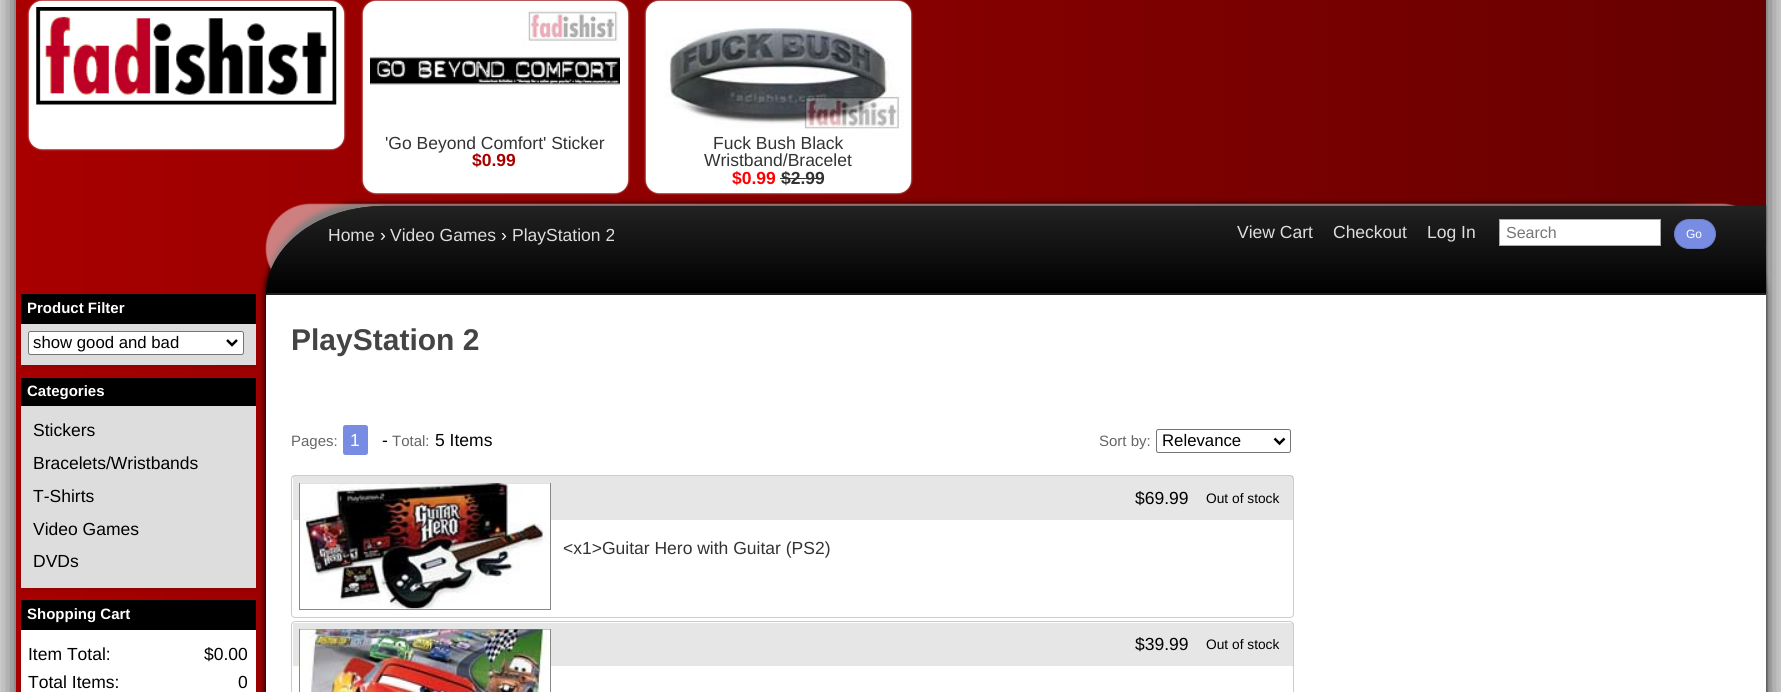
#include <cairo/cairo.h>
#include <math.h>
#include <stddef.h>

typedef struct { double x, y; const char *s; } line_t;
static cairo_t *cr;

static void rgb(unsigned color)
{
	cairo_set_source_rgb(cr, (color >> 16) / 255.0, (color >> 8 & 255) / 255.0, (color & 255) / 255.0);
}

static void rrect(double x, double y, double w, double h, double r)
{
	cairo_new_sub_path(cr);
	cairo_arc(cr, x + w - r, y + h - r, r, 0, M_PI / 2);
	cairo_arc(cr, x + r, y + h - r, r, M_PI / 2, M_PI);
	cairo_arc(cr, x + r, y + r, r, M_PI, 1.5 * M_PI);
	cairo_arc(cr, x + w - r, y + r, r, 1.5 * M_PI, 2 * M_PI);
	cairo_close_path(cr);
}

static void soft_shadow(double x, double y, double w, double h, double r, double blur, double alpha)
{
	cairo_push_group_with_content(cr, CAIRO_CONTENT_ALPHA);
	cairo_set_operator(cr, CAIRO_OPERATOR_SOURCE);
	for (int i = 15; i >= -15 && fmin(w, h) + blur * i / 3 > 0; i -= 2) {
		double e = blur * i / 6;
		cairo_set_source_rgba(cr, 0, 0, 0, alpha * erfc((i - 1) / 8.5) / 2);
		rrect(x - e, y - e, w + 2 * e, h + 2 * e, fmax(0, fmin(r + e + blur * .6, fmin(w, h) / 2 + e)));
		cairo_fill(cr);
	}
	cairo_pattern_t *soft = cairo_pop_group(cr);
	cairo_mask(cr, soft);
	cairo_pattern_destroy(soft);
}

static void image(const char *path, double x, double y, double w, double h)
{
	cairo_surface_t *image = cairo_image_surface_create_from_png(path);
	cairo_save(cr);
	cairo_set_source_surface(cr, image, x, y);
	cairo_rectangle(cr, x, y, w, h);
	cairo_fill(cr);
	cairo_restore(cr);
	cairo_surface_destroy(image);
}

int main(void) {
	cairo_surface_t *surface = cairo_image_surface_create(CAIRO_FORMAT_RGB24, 1781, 692);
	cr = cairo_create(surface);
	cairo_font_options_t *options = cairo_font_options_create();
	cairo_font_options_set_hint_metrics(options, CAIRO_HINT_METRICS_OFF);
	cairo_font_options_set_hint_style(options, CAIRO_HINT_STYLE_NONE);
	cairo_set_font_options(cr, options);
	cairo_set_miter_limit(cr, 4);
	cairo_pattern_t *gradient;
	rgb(0xd8d8d8);
	cairo_paint(cr);
	rgb(0x000000);
	soft_shadow(16, -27, 1750, 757, 0, 12.5, 0.7);
	gradient = cairo_pattern_create_linear(16, 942, 1766, 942);
	cairo_pattern_add_color_stop_rgba(gradient, 0, 0.659, 0, 0, 1);
	cairo_pattern_add_color_stop_rgba(gradient, 1, 0.4, 0, 0, 1);
	cairo_set_source(cr, gradient);
	cairo_pattern_destroy(gradient);
	cairo_rectangle(cr, 16, 0, 1750, 692);
	cairo_fill(cr);
	rgb(0xffffff);
	soft_shadow(29, 1, 315, 148, 13, 1, 1);
	rgb(0xffffff);
	rrect(29, 1, 315, 148, 13);
	cairo_fill(cr);
	image("img/1.png", 36, 7, 301, 98);
	rgb(0xffffff);
	soft_shadow(363, 1, 265, 192, 13, 1, 1);
	rgb(0xffffff);
	rrect(363, 1, 265, 192, 13);
	cairo_fill(cr);
	image("img/2.png", 370, 8, 250, 79);
	rgb(0xffffff);
	soft_shadow(646, 1, 265, 192, 13, 1, 1);
	rgb(0xffffff);
	rrect(646, 1, 265, 192, 13);
	cairo_fill(cr);
	image("img/3.png", 665, 28, 239, 101);
	rgb(0x333333);
	cairo_rectangle(cr, 780, 178, 44, 1);
	cairo_fill(cr);
	rgb(0x000000);
	cairo_rectangle(cr, 21, 294, 235, 30);
	cairo_fill(cr);
	rgb(0x000000);
	soft_shadow(21, 328, 235, 41, 0, 2, 0.1);
	rgb(0xdddddd);
	cairo_rectangle(cr, 21, 324, 235, 41);
	cairo_fill(cr);
	rgb(0xffffff);
	rrect(28.5, 331.5, 215, 23, 2);
	cairo_fill_preserve(cr);
	rgb(0x767676);
	cairo_set_line_width(cr, 1);
	cairo_stroke(cr);
	cairo_new_path(cr);
	cairo_move_to(cr, 227, 340);
	cairo_line_to(cr, 232, 345);
	cairo_line_to(cr, 237, 340);
	rgb(0x000000);
	cairo_set_line_width(cr, 2.5);
	cairo_stroke(cr);
	cairo_rectangle(cr, 21, 378, 235, 28);
	cairo_fill(cr);
	rgb(0x000000);
	soft_shadow(21, 410, 235, 181, 0, 2, 0.1);
	rgb(0xdddddd);
	cairo_rectangle(cr, 21, 406, 235, 182);
	cairo_fill(cr);
	rgb(0x000000);
	cairo_rectangle(cr, 21, 600, 235, 30);
	cairo_fill(cr);
	rgb(0x000000);
	soft_shadow(21, 634, 235, 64, 0, 2, 0.1);
	rgb(0xffffff);
	cairo_rectangle(cr, 21, 630, 235, 62);
	cairo_fill(cr);
	rgb(0x000000);
	soft_shadow(265, 204, 1500, 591, 94, 3, 1);
	rgb(0xffffff);
	cairo_new_path(cr);
	cairo_move_to(cr, 391, 206);
	cairo_line_to(cr, 1766, 206);
	cairo_line_to(cr, 1766, 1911);
	cairo_line_to(cr, 266, 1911);
	cairo_line_to(cr, 266, 300);
	cairo_curve_to(cr, 266, 248, 322, 206, 391, 206);
	cairo_close_path(cr);
	cairo_fill(cr);
	rgb(0xffffff);
	soft_shadow(266, 204, 1500, 89, 89, 0.5, 0.5);
	rgb(0x000000);
	cairo_new_path(cr);
	cairo_move_to(cr, 385, 206);
	cairo_line_to(cr, 1766, 206);
	cairo_line_to(cr, 1766, 295);
	cairo_line_to(cr, 266, 295);
	cairo_curve_to(cr, 266, 246, 319, 206, 385, 206);
	cairo_close_path(cr);
	cairo_fill(cr);
	image("img/4.png", 266, 205, 1501, 90);
	rgb(0xffffff);
	cairo_rectangle(cr, 1499.5, 219.5, 161, 26);
	cairo_fill_preserve(cr);
	rgb(0xaaaaaa);
	cairo_set_line_width(cr, 1);
	cairo_stroke(cr);
	rgb(0x788ce4);
	rrect(1674.5, 219.5, 41, 29, 14.5);
	cairo_fill_preserve(cr);
	rgb(0x6e7ec3);
	cairo_stroke(cr);
	rgb(0x788ce4);
	rrect(343, 425, 25, 30, 2.5);
	cairo_fill(cr);
	rrect(1156.5, 429.5, 134, 23, 2);
	rgb(0x767676);
	cairo_stroke(cr);
	cairo_new_path(cr);
	cairo_move_to(cr, 1274.5, 438.5);
	cairo_line_to(cr, 1279.5, 443.5);
	cairo_line_to(cr, 1284.5, 438.5);
	rgb(0x000000);
	cairo_set_line_width(cr, 2.5);
	cairo_stroke(cr);
	rrect(291.5, 475.5, 1002, 142, 3.5);
	rgb(0xcccccc);
	cairo_set_line_width(cr, 1);
	cairo_stroke(cr);
	cairo_set_source_rgba(cr, 0, 0, 0, 0.1);
	cairo_rectangle(cr, 293, 476, 1000, 44);
	cairo_fill(cr);
	cairo_rectangle(cr, 299.5, 483.5, 251, 126);
	rgb(0x888888);
	cairo_stroke(cr);
	image("img/5.png", 300, 483, 250, 126);
	rrect(291.5, 621.5, 1002, 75, 3.5);
	rgb(0xcccccc);
	cairo_stroke(cr);
	cairo_set_source_rgba(cr, 0, 0, 0, 0.1);
	cairo_rectangle(cr, 293, 623, 1000, 43);
	cairo_fill(cr);
	cairo_rectangle(cr, 299.5, 629.5, 251, 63);
	rgb(0x888888);
	cairo_stroke(cr);
	image("img/6.png", 300, 629, 250, 63);
	cairo_select_font_face(cr, "Liberation Sans", CAIRO_FONT_SLANT_NORMAL, CAIRO_FONT_WEIGHT_NORMAL);
	cairo_set_font_size(cr, 17.5);
	rgb(0x333333);
	cairo_move_to(cr, 385, 149);
	cairo_show_text(cr, "'Go Beyond Comfort' Sticker");
	cairo_select_font_face(cr, "Liberation Sans", CAIRO_FONT_SLANT_NORMAL, CAIRO_FONT_WEIGHT_BOLD);
	rgb(0xa80000);
	cairo_move_to(cr, 472, 166);
	cairo_show_text(cr, "$0.99");
	cairo_select_font_face(cr, "Liberation Sans", CAIRO_FONT_SLANT_NORMAL, CAIRO_FONT_WEIGHT_NORMAL);
	rgb(0x333333);
	cairo_move_to(cr, 713, 149);
	cairo_show_text(cr, "Fuck Bush Black");
	cairo_move_to(cr, 704, 166);
	cairo_show_text(cr, "Wristband/Bracelet");
	cairo_select_font_face(cr, "Liberation Sans", CAIRO_FONT_SLANT_NORMAL, CAIRO_FONT_WEIGHT_BOLD);
	rgb(0xff0000);
	cairo_move_to(cr, 732, 184);
	cairo_show_text(cr, "$0.99");
	rgb(0x333333);
	cairo_move_to(cr, 781, 184);
	cairo_show_text(cr, "$2.99");
	cairo_set_font_size(cr, 15);
	rgb(0xffffff);
	cairo_move_to(cr, 27, 313);
	cairo_show_text(cr, "Product Filter");
	cairo_select_font_face(cr, "Liberation Sans", CAIRO_FONT_SLANT_NORMAL, CAIRO_FONT_WEIGHT_NORMAL);
	cairo_set_font_size(cr, 16.75);
	rgb(0x000000);
	cairo_move_to(cr, 33, 348);
	cairo_show_text(cr, "show good and bad");
	cairo_select_font_face(cr, "Liberation Sans", CAIRO_FONT_SLANT_NORMAL, CAIRO_FONT_WEIGHT_BOLD);
	cairo_set_font_size(cr, 15);
	rgb(0xffffff);
	cairo_move_to(cr, 27, 396);
	cairo_show_text(cr, "Categories");
	cairo_select_font_face(cr, "Liberation Sans", CAIRO_FONT_SLANT_NORMAL, CAIRO_FONT_WEIGHT_NORMAL);
	cairo_set_font_size(cr, 17.5);
	rgb(0x000000);
	{
		static const line_t items[] = {
			{33, 436, "Stickers"},
			{33, 469, "Bracelets/Wristbands"},
			{33, 502, "T-Shirts"},
			{33, 535, "Video Games"},
			{33, 567, "DVDs"},
		};
		for (size_t i = 0; i < sizeof items / sizeof *items; i++) {
			cairo_move_to(cr, items[i].x, items[i].y);
			cairo_show_text(cr, items[i].s);
		}
	}
	cairo_select_font_face(cr, "Liberation Sans", CAIRO_FONT_SLANT_NORMAL, CAIRO_FONT_WEIGHT_BOLD);
	cairo_set_font_size(cr, 15);
	rgb(0xffffff);
	cairo_move_to(cr, 27, 619);
	cairo_show_text(cr, "Shopping Cart");
	cairo_select_font_face(cr, "Liberation Sans", CAIRO_FONT_SLANT_NORMAL, CAIRO_FONT_WEIGHT_NORMAL);
	cairo_set_font_size(cr, 17.5);
	rgb(0x000000);
	{
		static const line_t items[] = {
			{28, 660, "Item Total:"},
			{204, 660, "$0.00"},
			{28, 688, "Total Items:"},
			{238, 688, "0"},
		};
		for (size_t i = 0; i < sizeof items / sizeof *items; i++) {
			cairo_move_to(cr, items[i].x, items[i].y);
			cairo_show_text(cr, items[i].s);
		}
	}
	rgb(0xdddddd);
	cairo_move_to(cr, 328, 241);
	cairo_show_text(cr, "Home");
	rgb(0xffffff);
	cairo_move_to(cr, 380, 241);
	cairo_show_text(cr, "›");
	rgb(0xdddddd);
	cairo_move_to(cr, 390, 241);
	cairo_show_text(cr, "Video Games");
	rgb(0xffffff);
	cairo_move_to(cr, 501, 241);
	cairo_show_text(cr, "›");
	rgb(0xdddddd);
	{
		static const line_t items[] = {
			{512, 241, "PlayStation 2"},
			{1237, 238, "View Cart"},
			{1333, 238, "Checkout"},
			{1427, 238, "Log In"},
		};
		for (size_t i = 0; i < sizeof items / sizeof *items; i++) {
			cairo_move_to(cr, items[i].x, items[i].y);
			cairo_show_text(cr, items[i].s);
		}
	}
	cairo_set_font_size(cr, 16);
	rgb(0x757575);
	cairo_move_to(cr, 1506, 238);
	cairo_show_text(cr, "Search");
	cairo_set_font_size(cr, 12);
	rgb(0xffffff);
	cairo_move_to(cr, 1686, 238);
	cairo_show_text(cr, "Go");
	cairo_select_font_face(cr, "Liberation Sans", CAIRO_FONT_SLANT_NORMAL, CAIRO_FONT_WEIGHT_BOLD);
	cairo_set_font_size(cr, 30);
	rgb(0x444444);
	cairo_move_to(cr, 291, 350);
	cairo_show_text(cr, "PlayStation 2");
	cairo_select_font_face(cr, "Liberation Sans", CAIRO_FONT_SLANT_NORMAL, CAIRO_FONT_WEIGHT_NORMAL);
	cairo_set_font_size(cr, 15);
	rgb(0x666666);
	cairo_move_to(cr, 291, 446);
	cairo_show_text(cr, "Pages:");
	cairo_set_font_size(cr, 17.5);
	rgb(0xffffff);
	cairo_move_to(cr, 350, 446);
	cairo_show_text(cr, "1");
	rgb(0x000000);
	cairo_move_to(cr, 382, 446);
	cairo_show_text(cr, "-");
	cairo_set_font_size(cr, 15);
	rgb(0x666666);
	cairo_move_to(cr, 392, 446);
	cairo_show_text(cr, "Total:");
	cairo_set_font_size(cr, 17.5);
	rgb(0x000000);
	cairo_move_to(cr, 435, 446);
	cairo_show_text(cr, "5 Items");
	cairo_set_font_size(cr, 15);
	rgb(0x666666);
	cairo_move_to(cr, 1099, 446);
	cairo_show_text(cr, "Sort by:");
	cairo_set_font_size(cr, 16.75);
	rgb(0x000000);
	cairo_move_to(cr, 1162, 446);
	cairo_show_text(cr, "Relevance");
	cairo_set_font_size(cr, 17.5);
	cairo_move_to(cr, 1135, 504);
	cairo_show_text(cr, "$69.99");
	cairo_set_font_size(cr, 13.75);
	cairo_move_to(cr, 1206, 503);
	cairo_show_text(cr, "Out of stock");
	cairo_set_font_size(cr, 17.5);
	rgb(0x333333);
	cairo_move_to(cr, 563, 554);
	cairo_show_text(cr, "<x1>Guitar Hero with Guitar (PS2)");
	rgb(0x000000);
	cairo_move_to(cr, 1135, 650);
	cairo_show_text(cr, "$39.99");
	cairo_set_font_size(cr, 13.75);
	cairo_move_to(cr, 1206, 649);
	cairo_show_text(cr, "Out of stock");
	cairo_surface_write_to_png(surface, "page.png");
	cairo_font_options_destroy(options);
	cairo_destroy(cr);
	cairo_surface_destroy(surface);
	return 0;
}
